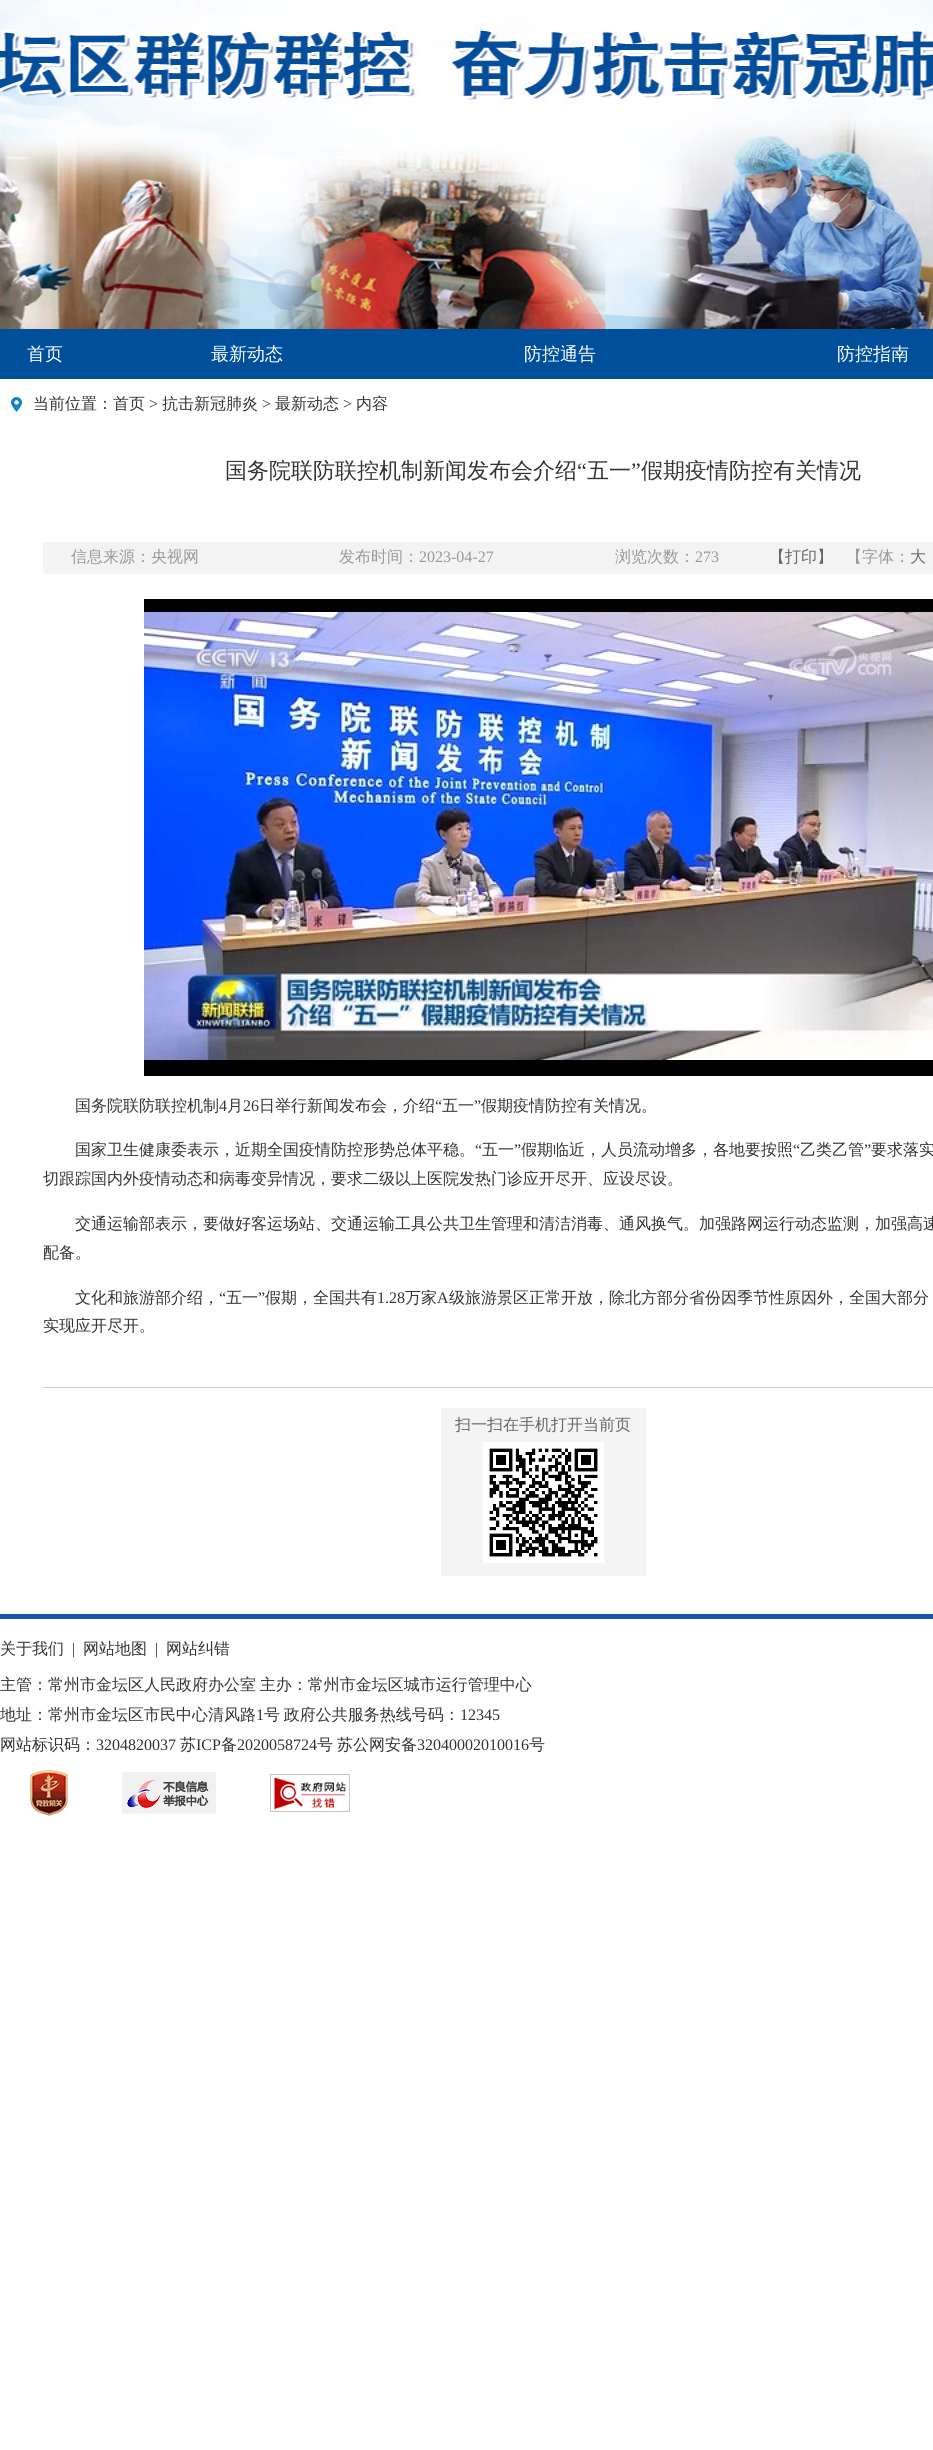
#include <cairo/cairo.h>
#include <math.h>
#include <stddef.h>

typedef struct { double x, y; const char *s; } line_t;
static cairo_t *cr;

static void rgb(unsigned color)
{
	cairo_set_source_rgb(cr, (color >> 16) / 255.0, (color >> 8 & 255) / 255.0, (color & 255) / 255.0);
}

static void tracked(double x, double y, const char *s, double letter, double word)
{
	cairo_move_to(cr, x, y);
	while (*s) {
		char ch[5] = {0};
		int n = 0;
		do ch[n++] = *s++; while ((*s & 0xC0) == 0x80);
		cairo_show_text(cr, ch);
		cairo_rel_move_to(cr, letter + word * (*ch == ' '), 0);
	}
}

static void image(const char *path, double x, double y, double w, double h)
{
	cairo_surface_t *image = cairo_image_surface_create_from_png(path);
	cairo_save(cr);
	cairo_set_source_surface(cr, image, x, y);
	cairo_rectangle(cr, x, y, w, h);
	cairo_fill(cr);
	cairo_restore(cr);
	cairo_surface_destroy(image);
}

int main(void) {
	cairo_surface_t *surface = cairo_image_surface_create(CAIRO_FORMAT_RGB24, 933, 2450);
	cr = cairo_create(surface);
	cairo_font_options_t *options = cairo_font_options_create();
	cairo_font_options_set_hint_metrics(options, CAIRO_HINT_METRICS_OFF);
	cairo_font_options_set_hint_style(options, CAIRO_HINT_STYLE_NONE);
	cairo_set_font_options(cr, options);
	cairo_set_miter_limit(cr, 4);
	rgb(0xffffff);
	cairo_paint(cr);
	image("img/1.png", 0, 0, 933, 329);
	rgb(0x004f9b);
	cairo_rectangle(cr, 0, 329, 933, 50);
	cairo_fill(cr);
	image("img/2.png", 11, 397, 11, 15);
	rgb(0xf3f3f3);
	cairo_rectangle(cr, 43, 542, 890, 32);
	cairo_fill(cr);
	image("img/3.png", 144, 599, 789, 477);
	rgb(0xcccccc);
	cairo_rectangle(cr, 43, 1387, 890, 1);
	cairo_fill(cr);
	rgb(0xf4f4f4);
	cairo_rectangle(cr, 441, 1408, 205, 168);
	cairo_fill(cr);
	image("img/4.png", 483, 1442, 121, 121);
	rgb(0x1856ac);
	cairo_rectangle(cr, 0, 1614, 933, 5);
	cairo_fill(cr);
	image("img/5.png", 30, 1770, 38, 46);
	image("img/6.png", 122, 1772, 94, 42);
	image("img/7.png", 270, 1774, 80, 38);
	cairo_select_font_face(cr, "WenQuanYi Zen Hei Medium", CAIRO_FONT_SLANT_NORMAL, CAIRO_FONT_WEIGHT_NORMAL);
	cairo_set_font_size(cr, 18);
	rgb(0xffffff);
	{
		static const line_t items[] = {
			{27, 360, "首页"},
			{211, 360, "最新动态"},
			{524, 360, "防控通告"},
			{837, 360, "防控指南"},
		};
		for (size_t i = 0; i < sizeof items / sizeof *items; i++) {
			cairo_move_to(cr, items[i].x, items[i].y);
			cairo_show_text(cr, items[i].s);
		}
	}
	cairo_set_font_size(cr, 16);
	rgb(0x333333);
	cairo_move_to(cr, 33, 409);
	cairo_show_text(cr, "当前位置：首页");
	cairo_select_font_face(cr, "Liberation Serif", CAIRO_FONT_SLANT_NORMAL, CAIRO_FONT_WEIGHT_NORMAL);
	cairo_move_to(cr, 149, 409);
	cairo_show_text(cr, ">");
	cairo_select_font_face(cr, "WenQuanYi Zen Hei Medium", CAIRO_FONT_SLANT_NORMAL, CAIRO_FONT_WEIGHT_NORMAL);
	cairo_move_to(cr, 162, 409);
	cairo_show_text(cr, "抗击新冠肺炎");
	cairo_select_font_face(cr, "Liberation Serif", CAIRO_FONT_SLANT_NORMAL, CAIRO_FONT_WEIGHT_NORMAL);
	cairo_move_to(cr, 262, 409);
	cairo_show_text(cr, ">");
	cairo_select_font_face(cr, "WenQuanYi Zen Hei Medium", CAIRO_FONT_SLANT_NORMAL, CAIRO_FONT_WEIGHT_NORMAL);
	cairo_move_to(cr, 275, 409);
	cairo_show_text(cr, "最新动态");
	cairo_select_font_face(cr, "Liberation Serif", CAIRO_FONT_SLANT_NORMAL, CAIRO_FONT_WEIGHT_NORMAL);
	cairo_move_to(cr, 343, 409);
	cairo_show_text(cr, ">");
	cairo_select_font_face(cr, "WenQuanYi Zen Hei Medium", CAIRO_FONT_SLANT_NORMAL, CAIRO_FONT_WEIGHT_NORMAL);
	cairo_move_to(cr, 356, 409);
	cairo_show_text(cr, "内容");
	cairo_set_font_size(cr, 22);
	cairo_move_to(cr, 225, 478);
	cairo_show_text(cr, "国务院联防联控机制新闻发布会介绍");
	cairo_select_font_face(cr, "Liberation Serif", CAIRO_FONT_SLANT_NORMAL, CAIRO_FONT_WEIGHT_NORMAL);
	cairo_move_to(cr, 577, 478);
	cairo_show_text(cr, "“");
	cairo_select_font_face(cr, "WenQuanYi Zen Hei Medium", CAIRO_FONT_SLANT_NORMAL, CAIRO_FONT_WEIGHT_NORMAL);
	cairo_move_to(cr, 587, 478);
	cairo_show_text(cr, "五一");
	cairo_select_font_face(cr, "Liberation Serif", CAIRO_FONT_SLANT_NORMAL, CAIRO_FONT_WEIGHT_NORMAL);
	cairo_move_to(cr, 631, 478);
	cairo_show_text(cr, "”");
	cairo_select_font_face(cr, "WenQuanYi Zen Hei Medium", CAIRO_FONT_SLANT_NORMAL, CAIRO_FONT_WEIGHT_NORMAL);
	cairo_move_to(cr, 641, 478);
	cairo_show_text(cr, "假期疫情防控有关情况");
	cairo_set_font_size(cr, 16);
	rgb(0x999999);
	cairo_move_to(cr, 71, 562);
	cairo_show_text(cr, "信息来源：央视网");
	cairo_move_to(cr, 339, 562);
	cairo_show_text(cr, "发布时间：");
	cairo_select_font_face(cr, "Liberation Serif", CAIRO_FONT_SLANT_NORMAL, CAIRO_FONT_WEIGHT_NORMAL);
	cairo_move_to(cr, 419, 562);
	cairo_show_text(cr, "2023-04-27");
	cairo_select_font_face(cr, "WenQuanYi Zen Hei Medium", CAIRO_FONT_SLANT_NORMAL, CAIRO_FONT_WEIGHT_NORMAL);
	cairo_move_to(cr, 615, 562);
	cairo_show_text(cr, "浏览次数：");
	cairo_select_font_face(cr, "Liberation Serif", CAIRO_FONT_SLANT_NORMAL, CAIRO_FONT_WEIGHT_NORMAL);
	cairo_move_to(cr, 695, 562);
	cairo_show_text(cr, "273");
	cairo_select_font_face(cr, "WenQuanYi Zen Hei Medium", CAIRO_FONT_SLANT_NORMAL, CAIRO_FONT_WEIGHT_NORMAL);
	rgb(0x666666);
	cairo_move_to(cr, 769, 562);
	cairo_show_text(cr, "【打印】");
	rgb(0x999999);
	cairo_move_to(cr, 846, 562);
	cairo_show_text(cr, "【字体：");
	rgb(0x666666);
	cairo_move_to(cr, 910, 562);
	cairo_show_text(cr, "大");
	rgb(0x333333);
	cairo_move_to(cr, 75, 1111);
	cairo_show_text(cr, "国务院联防联控机制");
	cairo_select_font_face(cr, "Liberation Serif", CAIRO_FONT_SLANT_NORMAL, CAIRO_FONT_WEIGHT_NORMAL);
	cairo_move_to(cr, 219, 1111);
	cairo_show_text(cr, "4");
	cairo_select_font_face(cr, "WenQuanYi Zen Hei Medium", CAIRO_FONT_SLANT_NORMAL, CAIRO_FONT_WEIGHT_NORMAL);
	cairo_move_to(cr, 227, 1111);
	cairo_show_text(cr, "月");
	cairo_select_font_face(cr, "Liberation Serif", CAIRO_FONT_SLANT_NORMAL, CAIRO_FONT_WEIGHT_NORMAL);
	cairo_move_to(cr, 243, 1111);
	cairo_show_text(cr, "26");
	cairo_select_font_face(cr, "WenQuanYi Zen Hei Medium", CAIRO_FONT_SLANT_NORMAL, CAIRO_FONT_WEIGHT_NORMAL);
	cairo_move_to(cr, 259, 1111);
	cairo_show_text(cr, "日举行新闻发布会，介绍");
	cairo_select_font_face(cr, "Liberation Serif", CAIRO_FONT_SLANT_NORMAL, CAIRO_FONT_WEIGHT_NORMAL);
	cairo_move_to(cr, 435, 1111);
	cairo_show_text(cr, "“");
	cairo_select_font_face(cr, "WenQuanYi Zen Hei Medium", CAIRO_FONT_SLANT_NORMAL, CAIRO_FONT_WEIGHT_NORMAL);
	cairo_move_to(cr, 442, 1111);
	cairo_show_text(cr, "五一");
	cairo_select_font_face(cr, "Liberation Serif", CAIRO_FONT_SLANT_NORMAL, CAIRO_FONT_WEIGHT_NORMAL);
	cairo_move_to(cr, 474, 1111);
	cairo_show_text(cr, "”");
	cairo_select_font_face(cr, "WenQuanYi Zen Hei Medium", CAIRO_FONT_SLANT_NORMAL, CAIRO_FONT_WEIGHT_NORMAL);
	cairo_move_to(cr, 481, 1111);
	cairo_show_text(cr, "假期疫情防控有关情况。");
	cairo_move_to(cr, 75, 1155);
	cairo_show_text(cr, "国家卫生健康委表示，近期全国疫情防控形势总体平稳。");
	cairo_select_font_face(cr, "Liberation Serif", CAIRO_FONT_SLANT_NORMAL, CAIRO_FONT_WEIGHT_NORMAL);
	cairo_move_to(cr, 475, 1155);
	cairo_show_text(cr, "“");
	cairo_select_font_face(cr, "WenQuanYi Zen Hei Medium", CAIRO_FONT_SLANT_NORMAL, CAIRO_FONT_WEIGHT_NORMAL);
	cairo_move_to(cr, 482, 1155);
	cairo_show_text(cr, "五一");
	cairo_select_font_face(cr, "Liberation Serif", CAIRO_FONT_SLANT_NORMAL, CAIRO_FONT_WEIGHT_NORMAL);
	cairo_move_to(cr, 514, 1155);
	cairo_show_text(cr, "”");
	cairo_select_font_face(cr, "WenQuanYi Zen Hei Medium", CAIRO_FONT_SLANT_NORMAL, CAIRO_FONT_WEIGHT_NORMAL);
	cairo_move_to(cr, 521, 1155);
	cairo_show_text(cr, "假期临近，人员流动增多，各地要按照");
	cairo_select_font_face(cr, "Liberation Serif", CAIRO_FONT_SLANT_NORMAL, CAIRO_FONT_WEIGHT_NORMAL);
	cairo_move_to(cr, 793, 1155);
	cairo_show_text(cr, "“");
	cairo_select_font_face(cr, "WenQuanYi Zen Hei Medium", CAIRO_FONT_SLANT_NORMAL, CAIRO_FONT_WEIGHT_NORMAL);
	cairo_move_to(cr, 800, 1155);
	cairo_show_text(cr, "乙类乙管");
	cairo_select_font_face(cr, "Liberation Serif", CAIRO_FONT_SLANT_NORMAL, CAIRO_FONT_WEIGHT_NORMAL);
	cairo_move_to(cr, 864, 1155);
	cairo_show_text(cr, "”");
	cairo_select_font_face(cr, "WenQuanYi Zen Hei Medium", CAIRO_FONT_SLANT_NORMAL, CAIRO_FONT_WEIGHT_NORMAL);
	{
		static const line_t items[] = {
			{871, 1155, "要求落实"},
			{43, 1184, "切跟踪国内外疫情动态和病毒变异情况，要求二级以上医院发热门诊应开尽开、应设尽设。"},
			{75, 1229, "交通运输部表示，要做好客运场站、交通运输工具公共卫生管理和清洁消毒、通风换气。加强路网运行动态监测，加强高速"},
			{43, 1258, "配备。"},
			{75, 1303, "文化和旅游部介绍，"},
		};
		for (size_t i = 0; i < sizeof items / sizeof *items; i++) {
			cairo_move_to(cr, items[i].x, items[i].y);
			cairo_show_text(cr, items[i].s);
		}
	}
	cairo_select_font_face(cr, "Liberation Serif", CAIRO_FONT_SLANT_NORMAL, CAIRO_FONT_WEIGHT_NORMAL);
	cairo_move_to(cr, 219, 1303);
	cairo_show_text(cr, "“");
	cairo_select_font_face(cr, "WenQuanYi Zen Hei Medium", CAIRO_FONT_SLANT_NORMAL, CAIRO_FONT_WEIGHT_NORMAL);
	cairo_move_to(cr, 226, 1303);
	cairo_show_text(cr, "五一");
	cairo_select_font_face(cr, "Liberation Serif", CAIRO_FONT_SLANT_NORMAL, CAIRO_FONT_WEIGHT_NORMAL);
	cairo_move_to(cr, 258, 1303);
	cairo_show_text(cr, "”");
	cairo_select_font_face(cr, "WenQuanYi Zen Hei Medium", CAIRO_FONT_SLANT_NORMAL, CAIRO_FONT_WEIGHT_NORMAL);
	cairo_move_to(cr, 265, 1303);
	cairo_show_text(cr, "假期，全国共有");
	cairo_select_font_face(cr, "Liberation Serif", CAIRO_FONT_SLANT_NORMAL, CAIRO_FONT_WEIGHT_NORMAL);
	cairo_move_to(cr, 377, 1303);
	cairo_show_text(cr, "1.28");
	cairo_select_font_face(cr, "WenQuanYi Zen Hei Medium", CAIRO_FONT_SLANT_NORMAL, CAIRO_FONT_WEIGHT_NORMAL);
	cairo_move_to(cr, 405, 1303);
	cairo_show_text(cr, "万家");
	cairo_select_font_face(cr, "Liberation Serif", CAIRO_FONT_SLANT_NORMAL, CAIRO_FONT_WEIGHT_NORMAL);
	cairo_move_to(cr, 437, 1303);
	cairo_show_text(cr, "A");
	cairo_select_font_face(cr, "WenQuanYi Zen Hei Medium", CAIRO_FONT_SLANT_NORMAL, CAIRO_FONT_WEIGHT_NORMAL);
	cairo_move_to(cr, 449, 1303);
	cairo_show_text(cr, "级旅游景区正常开放，除北方部分省份因季节性原因外，全国大部分");
	cairo_move_to(cr, 43, 1331);
	cairo_show_text(cr, "实现应开尽开。");
	rgb(0x666666);
	cairo_move_to(cr, 455, 1430);
	cairo_show_text(cr, "扫一扫在手机打开当前页");
	rgb(0x333333);
	cairo_move_to(cr, 0, 1654);
	cairo_show_text(cr, "关于我们");
	cairo_select_font_face(cr, "Liberation Serif", CAIRO_FONT_SLANT_NORMAL, CAIRO_FONT_WEIGHT_NORMAL);
	cairo_move_to(cr, 72, 1654);
	cairo_show_text(cr, "|");
	cairo_select_font_face(cr, "WenQuanYi Zen Hei Medium", CAIRO_FONT_SLANT_NORMAL, CAIRO_FONT_WEIGHT_NORMAL);
	cairo_move_to(cr, 83, 1654);
	cairo_show_text(cr, "网站地图");
	cairo_select_font_face(cr, "Liberation Serif", CAIRO_FONT_SLANT_NORMAL, CAIRO_FONT_WEIGHT_NORMAL);
	cairo_move_to(cr, 155, 1654);
	cairo_show_text(cr, "|");
	cairo_select_font_face(cr, "WenQuanYi Zen Hei Medium", CAIRO_FONT_SLANT_NORMAL, CAIRO_FONT_WEIGHT_NORMAL);
	cairo_move_to(cr, 166, 1654);
	cairo_show_text(cr, "网站纠错");
	tracked(0, 1690, "主管：常州市金坛区人民政府办公室 主办：常州市金坛区城市运行管理中心", 0, -1);
	cairo_move_to(cr, 0, 1720);
	cairo_show_text(cr, "地址：常州市金坛区市民中心清风路");
	cairo_select_font_face(cr, "Liberation Serif", CAIRO_FONT_SLANT_NORMAL, CAIRO_FONT_WEIGHT_NORMAL);
	cairo_move_to(cr, 256, 1720);
	cairo_show_text(cr, "1");
	cairo_select_font_face(cr, "WenQuanYi Zen Hei Medium", CAIRO_FONT_SLANT_NORMAL, CAIRO_FONT_WEIGHT_NORMAL);
	tracked(264, 1720, "号 政府公共服务热线号码：", 0, -1);
	cairo_select_font_face(cr, "Liberation Serif", CAIRO_FONT_SLANT_NORMAL, CAIRO_FONT_WEIGHT_NORMAL);
	cairo_move_to(cr, 460, 1720);
	cairo_show_text(cr, "12345");
	cairo_select_font_face(cr, "WenQuanYi Zen Hei Medium", CAIRO_FONT_SLANT_NORMAL, CAIRO_FONT_WEIGHT_NORMAL);
	cairo_move_to(cr, 0, 1750);
	cairo_show_text(cr, "网站标识码：");
	cairo_select_font_face(cr, "Liberation Serif", CAIRO_FONT_SLANT_NORMAL, CAIRO_FONT_WEIGHT_NORMAL);
	cairo_move_to(cr, 96, 1750);
	cairo_show_text(cr, "3204820037");
	cairo_select_font_face(cr, "WenQuanYi Zen Hei Medium", CAIRO_FONT_SLANT_NORMAL, CAIRO_FONT_WEIGHT_NORMAL);
	cairo_move_to(cr, 180, 1750);
	cairo_show_text(cr, "苏");
	cairo_select_font_face(cr, "Liberation Serif", CAIRO_FONT_SLANT_NORMAL, CAIRO_FONT_WEIGHT_NORMAL);
	cairo_move_to(cr, 196, 1750);
	cairo_show_text(cr, "ICP");
	cairo_select_font_face(cr, "WenQuanYi Zen Hei Medium", CAIRO_FONT_SLANT_NORMAL, CAIRO_FONT_WEIGHT_NORMAL);
	cairo_move_to(cr, 221, 1750);
	cairo_show_text(cr, "备");
	cairo_select_font_face(cr, "Liberation Serif", CAIRO_FONT_SLANT_NORMAL, CAIRO_FONT_WEIGHT_NORMAL);
	cairo_move_to(cr, 237, 1750);
	cairo_show_text(cr, "2020058724");
	cairo_select_font_face(cr, "WenQuanYi Zen Hei Medium", CAIRO_FONT_SLANT_NORMAL, CAIRO_FONT_WEIGHT_NORMAL);
	cairo_move_to(cr, 317, 1750);
	cairo_show_text(cr, "号");
	cairo_move_to(cr, 337, 1750);
	cairo_show_text(cr, "苏公网安备");
	cairo_select_font_face(cr, "Liberation Serif", CAIRO_FONT_SLANT_NORMAL, CAIRO_FONT_WEIGHT_NORMAL);
	cairo_move_to(cr, 417, 1750);
	cairo_show_text(cr, "32040002010016");
	cairo_select_font_face(cr, "WenQuanYi Zen Hei Medium", CAIRO_FONT_SLANT_NORMAL, CAIRO_FONT_WEIGHT_NORMAL);
	cairo_move_to(cr, 529, 1750);
	cairo_show_text(cr, "号");
	cairo_surface_write_to_png(surface, "page.png");
	cairo_font_options_destroy(options);
	cairo_destroy(cr);
	cairo_surface_destroy(surface);
	return 0;
}
